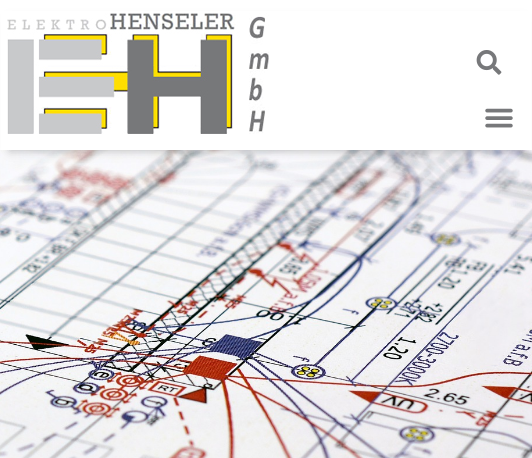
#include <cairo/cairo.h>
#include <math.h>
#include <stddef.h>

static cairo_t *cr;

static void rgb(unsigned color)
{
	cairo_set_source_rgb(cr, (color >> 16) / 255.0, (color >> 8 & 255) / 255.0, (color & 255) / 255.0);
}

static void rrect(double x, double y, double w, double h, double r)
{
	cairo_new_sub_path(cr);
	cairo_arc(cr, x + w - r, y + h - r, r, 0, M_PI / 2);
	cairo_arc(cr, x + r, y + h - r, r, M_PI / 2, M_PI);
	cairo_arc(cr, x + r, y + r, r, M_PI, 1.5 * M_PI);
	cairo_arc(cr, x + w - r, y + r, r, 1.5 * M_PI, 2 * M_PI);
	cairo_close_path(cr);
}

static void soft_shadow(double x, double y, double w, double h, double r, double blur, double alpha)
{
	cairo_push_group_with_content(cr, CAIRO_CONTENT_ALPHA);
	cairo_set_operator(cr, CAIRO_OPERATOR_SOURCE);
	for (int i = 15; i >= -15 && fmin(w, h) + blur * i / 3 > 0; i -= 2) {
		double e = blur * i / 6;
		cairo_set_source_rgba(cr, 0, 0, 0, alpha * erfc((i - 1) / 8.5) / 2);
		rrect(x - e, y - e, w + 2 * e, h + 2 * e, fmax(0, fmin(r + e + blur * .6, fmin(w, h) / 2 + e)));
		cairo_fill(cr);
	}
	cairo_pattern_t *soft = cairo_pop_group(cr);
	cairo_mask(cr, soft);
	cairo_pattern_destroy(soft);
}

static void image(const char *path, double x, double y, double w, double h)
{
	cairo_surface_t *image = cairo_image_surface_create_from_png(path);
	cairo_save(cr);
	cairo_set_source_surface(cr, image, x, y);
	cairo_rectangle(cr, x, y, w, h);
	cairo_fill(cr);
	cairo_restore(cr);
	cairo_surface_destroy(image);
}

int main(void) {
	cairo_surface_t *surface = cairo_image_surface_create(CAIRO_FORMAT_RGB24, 532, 458);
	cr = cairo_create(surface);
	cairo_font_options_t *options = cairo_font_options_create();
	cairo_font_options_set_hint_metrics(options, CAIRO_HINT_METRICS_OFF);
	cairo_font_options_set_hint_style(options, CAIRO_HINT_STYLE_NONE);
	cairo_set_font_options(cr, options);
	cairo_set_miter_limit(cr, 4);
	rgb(0xffffff);
	cairo_paint(cr);
	image("img/4.png", 0, 150, 532, 308);
	rgb(0x6b6b6b);
	soft_shadow(10, 20, 512, 130, 0, 5, 0.5);
	rgb(0xffffff);
	cairo_rectangle(cr, 1, 11, 530, 139);
	cairo_fill(cr);
	image("img/1.png", 7, 13, 262, 121);
	image("img/2.png", 476, 50, 26, 25);
	image("img/3.png", 485, 108, 28, 20);
	cairo_surface_write_to_png(surface, "page.png");
	cairo_font_options_destroy(options);
	cairo_destroy(cr);
	cairo_surface_destroy(surface);
	return 0;
}
